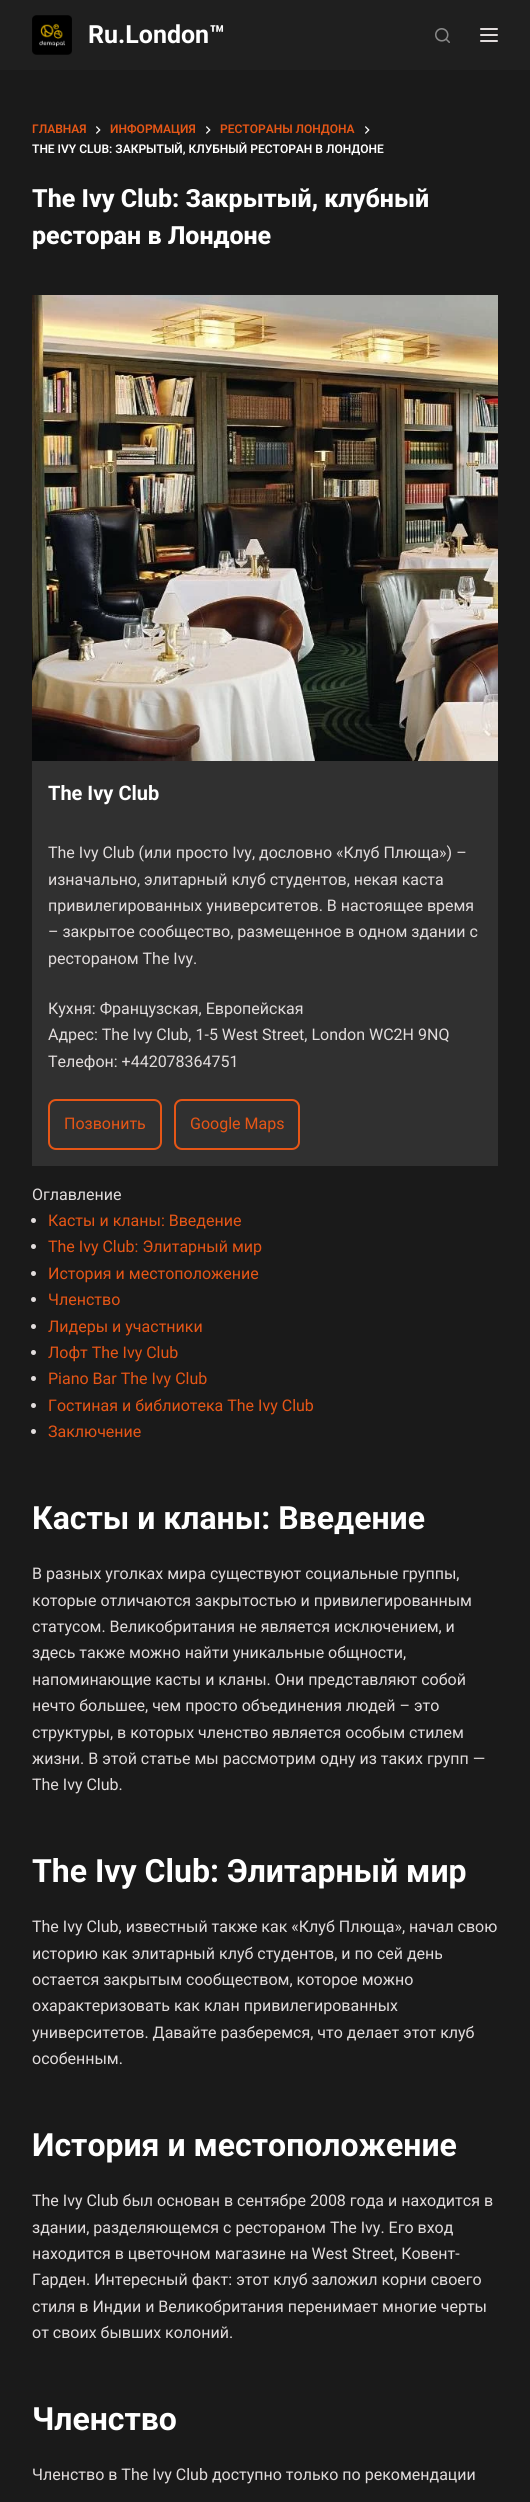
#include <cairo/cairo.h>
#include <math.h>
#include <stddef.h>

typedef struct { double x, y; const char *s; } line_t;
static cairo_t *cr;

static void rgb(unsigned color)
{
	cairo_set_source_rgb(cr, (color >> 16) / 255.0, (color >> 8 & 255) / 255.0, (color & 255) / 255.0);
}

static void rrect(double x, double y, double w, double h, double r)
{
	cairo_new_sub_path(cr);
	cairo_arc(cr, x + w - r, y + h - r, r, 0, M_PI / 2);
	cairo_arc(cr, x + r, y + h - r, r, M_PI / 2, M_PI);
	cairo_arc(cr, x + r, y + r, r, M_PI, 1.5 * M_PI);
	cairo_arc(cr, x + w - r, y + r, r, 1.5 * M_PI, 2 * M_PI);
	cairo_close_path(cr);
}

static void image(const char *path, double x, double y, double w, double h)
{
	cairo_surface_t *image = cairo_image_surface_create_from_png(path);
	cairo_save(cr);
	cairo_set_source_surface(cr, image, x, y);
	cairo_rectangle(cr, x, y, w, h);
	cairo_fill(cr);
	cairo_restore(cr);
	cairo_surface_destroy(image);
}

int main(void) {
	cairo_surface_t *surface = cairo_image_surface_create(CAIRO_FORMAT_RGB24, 530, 2502);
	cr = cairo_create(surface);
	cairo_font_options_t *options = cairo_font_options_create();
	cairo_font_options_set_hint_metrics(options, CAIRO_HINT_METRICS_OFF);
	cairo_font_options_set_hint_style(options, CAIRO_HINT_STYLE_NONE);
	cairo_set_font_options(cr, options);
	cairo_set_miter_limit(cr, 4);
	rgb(0x1a1a1a);
	cairo_paint(cr);
	rgb(0x1f1f1f);
	cairo_rectangle(cr, 0, 0, 530, 70);
	cairo_fill(cr);
	image("img/1.png", 32, 15, 40, 40);
	image("img/2.png", 435, 28, 15, 15);
	rgb(0xe2dddd);
	rrect(480, 28, 18, 2, 1);
	cairo_fill(cr);
	rrect(480, 34, 18, 2, 1);
	cairo_fill(cr);
	rrect(480, 40, 18, 2, 1);
	cairo_fill(cr);
	image("img/3.png", 96, 126, 5, 8);
	image("img/3.png", 206, 126, 5, 8);
	image("img/3.png", 365, 126, 5, 8);
	image("img/4.png", 32, 295, 466, 466);
	rgb(0x303030);
	cairo_rectangle(cr, 32, 761, 466, 405);
	cairo_fill(cr);
	rrect(49, 1100, 112, 49, 7);
	rgb(0xe65616);
	cairo_stroke(cr);
	rrect(175, 1100, 124, 49, 7);
	cairo_stroke(cr);
	rgb(0xe2dddd);
	cairo_arc(cr, 33.5, 1220.5, 2.5, 0, 2 * M_PI);
	cairo_fill(cr);
	cairo_arc(cr, 33.5, 1246.5, 2.5, 0, 2 * M_PI);
	cairo_fill(cr);
	cairo_arc(cr, 33.5, 1273.5, 2.5, 0, 2 * M_PI);
	cairo_fill(cr);
	cairo_arc(cr, 33.5, 1299.5, 2.5, 0, 2 * M_PI);
	cairo_fill(cr);
	cairo_arc(cr, 33.5, 1326.5, 2.5, 0, 2 * M_PI);
	cairo_fill(cr);
	cairo_arc(cr, 33.5, 1352.5, 2.5, 0, 2 * M_PI);
	cairo_fill(cr);
	cairo_arc(cr, 33.5, 1378.5, 2.5, 0, 2 * M_PI);
	cairo_fill(cr);
	cairo_arc(cr, 33.5, 1405.5, 2.5, 0, 2 * M_PI);
	cairo_fill(cr);
	cairo_arc(cr, 33.5, 1431.5, 2.5, 0, 2 * M_PI);
	cairo_fill(cr);
	cairo_select_font_face(cr, "Roboto", CAIRO_FONT_SLANT_NORMAL, CAIRO_FONT_WEIGHT_BOLD);
	cairo_set_font_size(cr, 25);
	rgb(0xffffff);
	cairo_move_to(cr, 88, 43);
	cairo_show_text(cr, "Ru.London™");
	cairo_select_font_face(cr, "Roboto SemiBold", CAIRO_FONT_SLANT_NORMAL, CAIRO_FONT_WEIGHT_NORMAL);
	cairo_set_font_size(cr, 12);
	rgb(0xe65616);
	{
		static const line_t items[] = {
			{32, 133, "ГЛАВНАЯ"},
			{110, 133, "ИНФОРМАЦИЯ"},
			{220, 133, "РЕСТОРАНЫ ЛОНДОНА"},
		};
		for (size_t i = 0; i < sizeof items / sizeof *items; i++) {
			cairo_move_to(cr, items[i].x, items[i].y);
			cairo_show_text(cr, items[i].s);
		}
	}
	rgb(0xffffff);
	cairo_move_to(cr, 32, 153);
	cairo_show_text(cr, "THE IVY CLUB: ЗАКРЫТЫЙ, КЛУБНЫЙ РЕСТОРАН В ЛОНДОНЕ");
	cairo_select_font_face(cr, "Roboto ExtraBold", CAIRO_FONT_SLANT_NORMAL, CAIRO_FONT_WEIGHT_NORMAL);
	cairo_set_font_size(cr, 25);
	cairo_move_to(cr, 32, 207);
	cairo_show_text(cr, "The Ivy Club: Закрытый, клубный");
	cairo_move_to(cr, 32, 244);
	cairo_show_text(cr, "ресторан в Лондоне");
	cairo_select_font_face(cr, "Roboto", CAIRO_FONT_SLANT_NORMAL, CAIRO_FONT_WEIGHT_BOLD);
	cairo_set_font_size(cr, 20);
	cairo_move_to(cr, 48, 800);
	cairo_show_text(cr, "The Ivy Club");
	cairo_select_font_face(cr, "Roboto", CAIRO_FONT_SLANT_NORMAL, CAIRO_FONT_WEIGHT_NORMAL);
	cairo_set_font_size(cr, 16);
	rgb(0xe2dddd);
	{
		static const line_t items[] = {
			{48, 858, "The Ivy Club (или просто Ivy, дословно «Клуб Плюща») –"},
			{48, 885, "изначально, элитарный клуб студентов, некая каста"},
			{48, 911, "привилегированных университетов. В настоящее время"},
			{48, 937, "– закрытое сообщество, размещенное в одном здании с"},
			{48, 964, "рестораном The Ivy."},
			{48, 1014, "Кухня: Французская, Европейская"},
			{48, 1040, "Адрес: The Ivy Club, 1-5 West Street, London WC2H 9NQ"},
			{48, 1067, "Телефон: +442078364751"},
		};
		for (size_t i = 0; i < sizeof items / sizeof *items; i++) {
			cairo_move_to(cr, items[i].x, items[i].y);
			cairo_show_text(cr, items[i].s);
		}
	}
	rgb(0xe65616);
	cairo_move_to(cr, 64, 1129);
	cairo_show_text(cr, "Позвонить");
	cairo_move_to(cr, 190, 1129);
	cairo_show_text(cr, "Google Maps");
	rgb(0xe2dddd);
	cairo_move_to(cr, 32, 1200);
	cairo_show_text(cr, "Оглавление");
	rgb(0xe65616);
	{
		static const line_t items[] = {
			{48, 1226, "Касты и кланы: Введение"},
			{48, 1252, "The Ivy Club: Элитарный мир"},
			{48, 1279, "История и местоположение"},
			{48, 1305, "Членство"},
			{48, 1332, "Лидеры и участники"},
			{48, 1358, "Лофт The Ivy Club"},
			{48, 1384, "Piano Bar The Ivy Club"},
			{48, 1411, "Гостиная и библиотека The Ivy Club"},
			{48, 1437, "Заключение"},
		};
		for (size_t i = 0; i < sizeof items / sizeof *items; i++) {
			cairo_move_to(cr, items[i].x, items[i].y);
			cairo_show_text(cr, items[i].s);
		}
	}
	cairo_select_font_face(cr, "Roboto", CAIRO_FONT_SLANT_NORMAL, CAIRO_FONT_WEIGHT_BOLD);
	cairo_set_font_size(cr, 32);
	rgb(0xffffff);
	cairo_move_to(cr, 32, 1529);
	cairo_show_text(cr, "Касты и кланы: Введение");
	cairo_select_font_face(cr, "Roboto", CAIRO_FONT_SLANT_NORMAL, CAIRO_FONT_WEIGHT_NORMAL);
	cairo_set_font_size(cr, 16);
	rgb(0xe2dddd);
	{
		static const line_t items[] = {
			{32, 1579, "В разных уголках мира существуют социальные группы,"},
			{32, 1606, "которые отличаются закрытостью и привилегированным"},
			{32, 1632, "статусом. Великобритания не является исключением, и"},
			{32, 1658, "здесь также можно найти уникальные общности,"},
			{32, 1685, "напоминающие касты и кланы. Они представляют собой"},
			{32, 1711, "нечто большее, чем просто объединения людей – это"},
			{32, 1738, "структуры, в которых членство является особым стилем"},
			{32, 1764, "жизни. В этой статье мы рассмотрим одну из таких групп —"},
			{32, 1790, "The Ivy Club."},
		};
		for (size_t i = 0; i < sizeof items / sizeof *items; i++) {
			cairo_move_to(cr, items[i].x, items[i].y);
			cairo_show_text(cr, items[i].s);
		}
	}
	cairo_select_font_face(cr, "Roboto", CAIRO_FONT_SLANT_NORMAL, CAIRO_FONT_WEIGHT_BOLD);
	cairo_set_font_size(cr, 32);
	rgb(0xffffff);
	cairo_move_to(cr, 32, 1882);
	cairo_show_text(cr, "The Ivy Club: Элитарный мир");
	cairo_select_font_face(cr, "Roboto", CAIRO_FONT_SLANT_NORMAL, CAIRO_FONT_WEIGHT_NORMAL);
	cairo_set_font_size(cr, 16);
	rgb(0xe2dddd);
	{
		static const line_t items[] = {
			{32, 1932, "The Ivy Club, известный также как «Клуб Плюща», начал свою"},
			{32, 1959, "историю как элитарный клуб студентов, и по сей день"},
			{32, 1985, "остается закрытым сообществом, которое можно"},
			{32, 2011, "охарактеризовать как клан привилегированных"},
			{32, 2038, "университетов. Давайте разберемся, что делает этот клуб"},
			{32, 2064, "особенным."},
		};
		for (size_t i = 0; i < sizeof items / sizeof *items; i++) {
			cairo_move_to(cr, items[i].x, items[i].y);
			cairo_show_text(cr, items[i].s);
		}
	}
	cairo_select_font_face(cr, "Roboto", CAIRO_FONT_SLANT_NORMAL, CAIRO_FONT_WEIGHT_BOLD);
	cairo_set_font_size(cr, 32);
	rgb(0xffffff);
	cairo_move_to(cr, 32, 2156);
	cairo_show_text(cr, "История и местоположение");
	cairo_select_font_face(cr, "Roboto", CAIRO_FONT_SLANT_NORMAL, CAIRO_FONT_WEIGHT_NORMAL);
	cairo_set_font_size(cr, 16);
	rgb(0xe2dddd);
	{
		static const line_t items[] = {
			{32, 2206, "The Ivy Club был основан в сентябре 2008 года и находится в"},
			{32, 2233, "здании, разделяющемся с рестораном The Ivy. Его вход"},
			{32, 2259, "находится в цветочном магазине на West Street, Ковент-"},
			{32, 2285, "Гарден. Интересный факт: этот клуб заложил корни своего"},
			{32, 2312, "стиля в Индии и Великобритания перенимает многие черты"},
			{32, 2338, "от своих бывших колоний."},
		};
		for (size_t i = 0; i < sizeof items / sizeof *items; i++) {
			cairo_move_to(cr, items[i].x, items[i].y);
			cairo_show_text(cr, items[i].s);
		}
	}
	cairo_select_font_face(cr, "Roboto", CAIRO_FONT_SLANT_NORMAL, CAIRO_FONT_WEIGHT_BOLD);
	cairo_set_font_size(cr, 32);
	rgb(0xffffff);
	cairo_move_to(cr, 32, 2430);
	cairo_show_text(cr, "Членство");
	cairo_select_font_face(cr, "Roboto", CAIRO_FONT_SLANT_NORMAL, CAIRO_FONT_WEIGHT_NORMAL);
	cairo_set_font_size(cr, 16);
	rgb(0xe2dddd);
	cairo_move_to(cr, 32, 2480);
	cairo_show_text(cr, "Членство в The Ivy Club доступно только по рекомендации");
	cairo_surface_write_to_png(surface, "page.png");
	cairo_font_options_destroy(options);
	cairo_destroy(cr);
	cairo_surface_destroy(surface);
	return 0;
}
